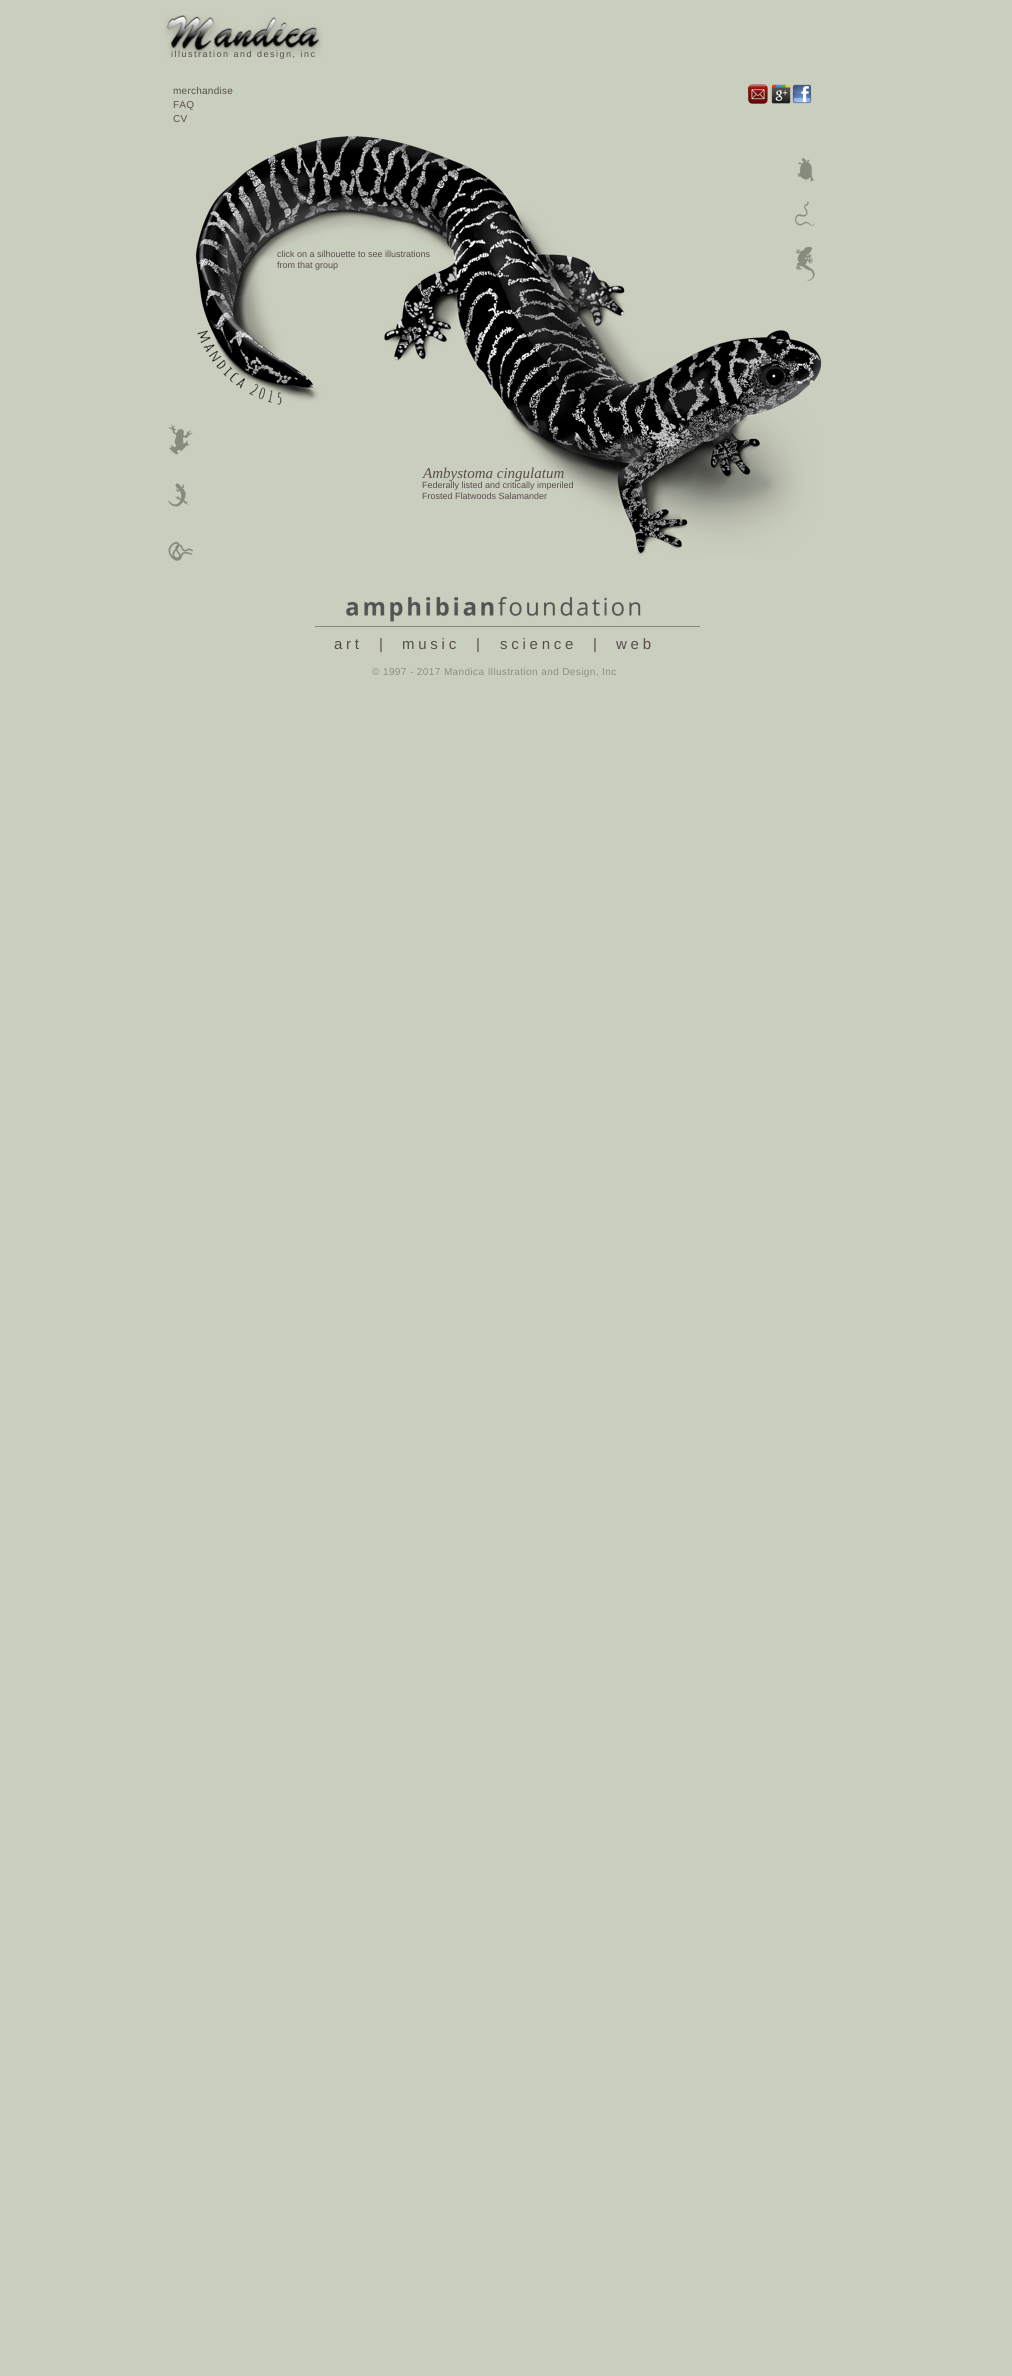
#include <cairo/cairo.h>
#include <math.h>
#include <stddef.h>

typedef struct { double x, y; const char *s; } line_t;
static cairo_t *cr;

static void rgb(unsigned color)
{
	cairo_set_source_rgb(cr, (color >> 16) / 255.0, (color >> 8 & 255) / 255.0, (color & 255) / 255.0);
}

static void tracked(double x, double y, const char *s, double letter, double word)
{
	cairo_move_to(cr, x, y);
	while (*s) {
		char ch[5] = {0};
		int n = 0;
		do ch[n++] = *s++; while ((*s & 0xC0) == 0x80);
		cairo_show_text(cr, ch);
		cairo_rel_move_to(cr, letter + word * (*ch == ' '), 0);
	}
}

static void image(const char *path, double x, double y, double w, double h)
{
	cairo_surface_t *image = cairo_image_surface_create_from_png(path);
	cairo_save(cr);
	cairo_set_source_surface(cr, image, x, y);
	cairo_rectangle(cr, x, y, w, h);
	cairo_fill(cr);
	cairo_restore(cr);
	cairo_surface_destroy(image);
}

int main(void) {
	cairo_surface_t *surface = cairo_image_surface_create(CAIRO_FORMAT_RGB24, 1012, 2376);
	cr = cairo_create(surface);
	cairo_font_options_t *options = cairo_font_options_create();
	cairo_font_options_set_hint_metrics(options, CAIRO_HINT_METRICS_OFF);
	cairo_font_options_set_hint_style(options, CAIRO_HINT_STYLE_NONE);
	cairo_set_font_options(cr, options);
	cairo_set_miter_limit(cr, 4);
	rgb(0xcacebe);
	cairo_paint(cr);
	image("img/1.png", 164, 14, 159, 44);
	image("img/2.png", 748, 84, 20, 20);
	image("img/3.png", 771, 84, 20, 20);
	image("img/4.png", 792, 84, 20, 20);
	image("img/5.png", 195, 136, 627, 420);
	image("img/6.png", 797, 158, 17, 24);
	image("img/7.png", 795, 201, 20, 26);
	image("img/8.png", 795, 247, 20, 34);
	image("img/9.png", 168, 424, 25, 31);
	image("img/10.png", 168, 483, 21, 24);
	image("img/11.png", 168, 541, 26, 20);
	image("img/12.png", 346, 596, 295, 26);
	rgb(0x878a7f);
	cairo_rectangle(cr, 315, 626, 385, 1);
	cairo_fill(cr);
	cairo_select_font_face(cr, "Liberation Sans", CAIRO_FONT_SLANT_NORMAL, CAIRO_FONT_WEIGHT_NORMAL);
	cairo_set_font_size(cr, 9);
	rgb(0x584d4d);
	tracked(171, 57, "illustration and design, inc", 1.5, 0);
	cairo_set_font_size(cr, 10);
	{
		static const line_t items[] = {
			{173, 94, "merchandise"},
			{173, 108, "FAQ"},
			{173, 122, "CV"},
		};
		for (size_t i = 0; i < sizeof items / sizeof *items; i++) {
			tracked(items[i].x, items[i].y, items[i].s, 0.25, 0);
		}
	}
	cairo_set_font_size(cr, 9);
	cairo_move_to(cr, 277, 257);
	cairo_show_text(cr, "click on a silhouette to see illustrations");
	cairo_move_to(cr, 277, 268);
	cairo_show_text(cr, "from that group");
	cairo_select_font_face(cr, "Liberation Serif", CAIRO_FONT_SLANT_ITALIC, CAIRO_FONT_WEIGHT_NORMAL);
	cairo_set_font_size(cr, 15);
	cairo_move_to(cr, 423, 478);
	cairo_show_text(cr, "Ambystoma cingulatum");
	cairo_select_font_face(cr, "Liberation Sans", CAIRO_FONT_SLANT_NORMAL, CAIRO_FONT_WEIGHT_NORMAL);
	cairo_set_font_size(cr, 9);
	cairo_move_to(cr, 422, 488);
	cairo_show_text(cr, "Federally listed and critically imperiled");
	cairo_move_to(cr, 422, 499);
	cairo_show_text(cr, "Frosted Flatwoods Salamander");
	cairo_set_font_size(cr, 15);
	{
		static const line_t items[] = {
			{334, 649, "art"},
			{379, 649, "|"},
			{402, 649, "music"},
			{476, 649, "|"},
			{500, 649, "science"},
			{593, 649, "|"},
			{616, 649, "web"},
		};
		for (size_t i = 0; i < sizeof items / sizeof *items; i++) {
			tracked(items[i].x, items[i].y, items[i].s, 3.75, 0);
		}
	}
	cairo_set_font_size(cr, 10);
	rgb(0x908c84);
	tracked(372, 675, "© 1997 - 2017 Mandica Illustration and Design, Inc", 0.4, 0);
	cairo_surface_write_to_png(surface, "page.png");
	cairo_font_options_destroy(options);
	cairo_destroy(cr);
	cairo_surface_destroy(surface);
	return 0;
}
